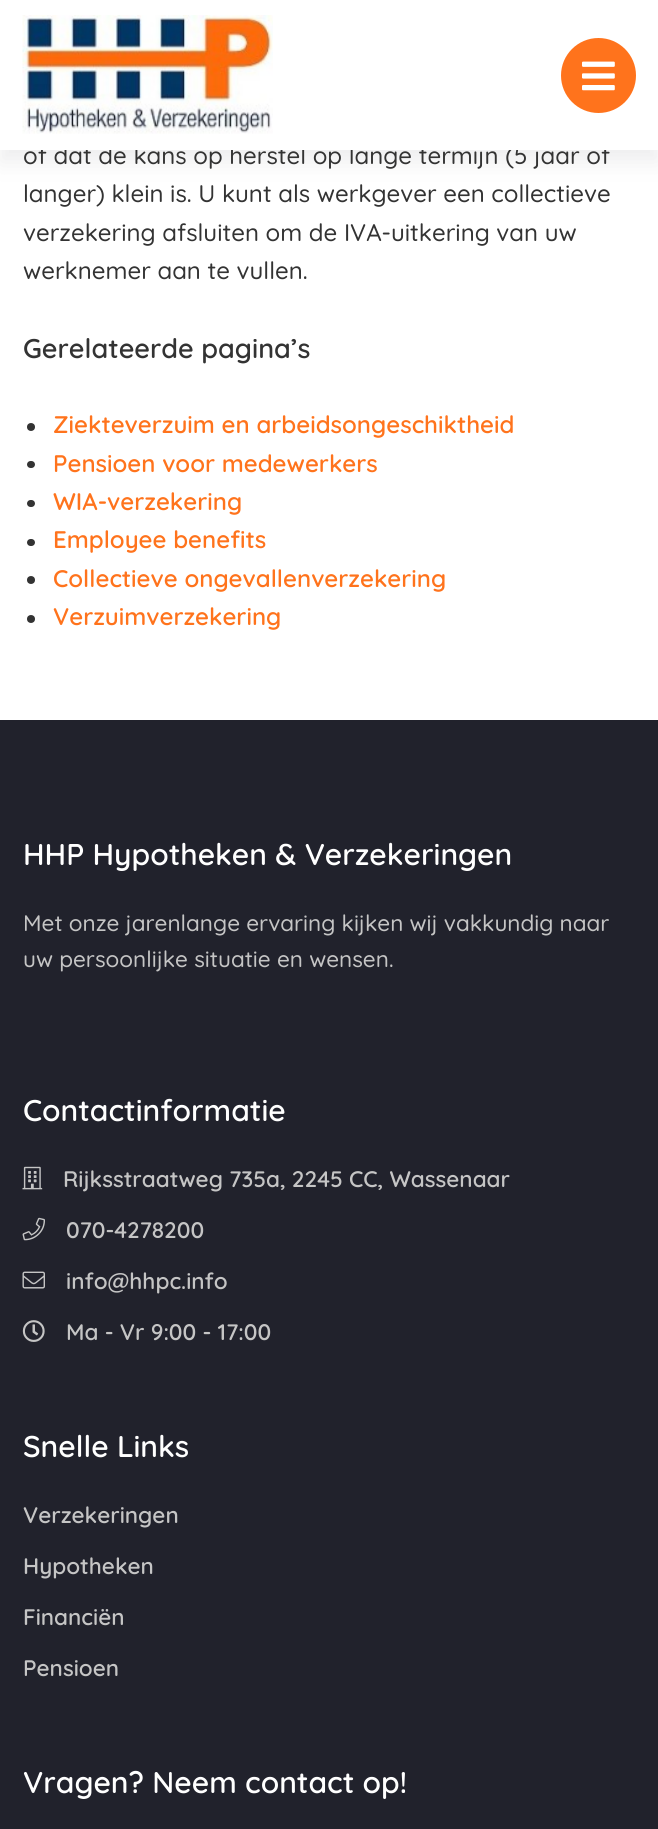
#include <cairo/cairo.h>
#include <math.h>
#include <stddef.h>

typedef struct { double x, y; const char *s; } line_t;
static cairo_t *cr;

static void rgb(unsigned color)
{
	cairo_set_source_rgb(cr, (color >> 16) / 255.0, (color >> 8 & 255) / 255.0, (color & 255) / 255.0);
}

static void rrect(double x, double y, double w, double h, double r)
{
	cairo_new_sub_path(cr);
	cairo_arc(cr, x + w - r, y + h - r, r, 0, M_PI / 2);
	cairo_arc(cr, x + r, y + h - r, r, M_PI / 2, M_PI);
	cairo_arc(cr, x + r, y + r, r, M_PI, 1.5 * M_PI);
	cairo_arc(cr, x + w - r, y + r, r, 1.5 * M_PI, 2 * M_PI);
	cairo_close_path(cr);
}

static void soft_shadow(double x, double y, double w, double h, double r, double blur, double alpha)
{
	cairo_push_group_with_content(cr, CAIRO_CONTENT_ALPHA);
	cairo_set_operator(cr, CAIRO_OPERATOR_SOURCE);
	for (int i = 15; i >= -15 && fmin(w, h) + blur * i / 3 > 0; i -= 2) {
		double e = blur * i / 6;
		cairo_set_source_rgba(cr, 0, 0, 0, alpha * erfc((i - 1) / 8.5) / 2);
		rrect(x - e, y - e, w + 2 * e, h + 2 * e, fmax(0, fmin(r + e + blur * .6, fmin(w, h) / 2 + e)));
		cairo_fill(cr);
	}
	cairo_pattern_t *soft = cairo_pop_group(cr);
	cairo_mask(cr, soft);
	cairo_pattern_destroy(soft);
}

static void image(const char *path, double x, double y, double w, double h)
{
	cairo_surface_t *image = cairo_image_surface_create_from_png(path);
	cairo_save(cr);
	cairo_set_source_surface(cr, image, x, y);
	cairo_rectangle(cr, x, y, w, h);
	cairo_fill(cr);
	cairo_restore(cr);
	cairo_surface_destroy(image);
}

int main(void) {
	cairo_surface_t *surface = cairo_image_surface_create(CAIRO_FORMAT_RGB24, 658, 1829);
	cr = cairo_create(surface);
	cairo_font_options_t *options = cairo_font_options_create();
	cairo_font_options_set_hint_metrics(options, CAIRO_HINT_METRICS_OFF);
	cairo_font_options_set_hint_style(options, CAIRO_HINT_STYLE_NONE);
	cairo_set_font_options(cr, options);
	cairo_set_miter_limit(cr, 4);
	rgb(0xffffff);
	cairo_paint(cr);
	rgb(0x4e4e5b);
	soft_shadow(0, 12, 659, 150, 0, 11, 0.1);
	rgb(0x333333);
	cairo_arc(cr, 31, 427, 4, 0, 2 * M_PI);
	cairo_fill(cr);
	rrect(27, 461, 8, 7, 3.5);
	cairo_fill(cr);
	rrect(27, 500, 8, 7, 3.5);
	cairo_fill(cr);
	rrect(27, 539, 8, 7, 3.5);
	cairo_fill(cr);
	cairo_arc(cr, 31, 580, 4, 0, 2 * M_PI);
	cairo_fill(cr);
	cairo_arc(cr, 31, 619, 4, 0, 2 * M_PI);
	cairo_fill(cr);
	rgb(0x21222c);
	cairo_rectangle(cr, 0, 720, 658, 1109);
	cairo_fill(cr);
	image("img/3.png", 22, 1166, 21, 24);
	image("img/4.png", 22, 1217, 23, 24);
	image("img/5.png", 22, 1271, 23, 18);
	image("img/6.png", 22, 1320, 23, 22);
	cairo_select_font_face(cr, "Quicksand Medium", CAIRO_FONT_SLANT_NORMAL, CAIRO_FONT_WEIGHT_NORMAL);
	cairo_set_font_size(cr, 24);
	rgb(0x333333);
	cairo_move_to(cr, 23, 164);
	cairo_show_text(cr, "of dat de kans op herstel op lange termijn (5 jaar of");
	rgb(0xffffff);
	cairo_rectangle(cr, 0, 0, 658, 150);
	cairo_fill(cr);
	rgb(0xff731c);
	cairo_arc(cr, 598.5, 75.5, 37.5, 0, 2 * M_PI);
	cairo_fill(cr);
	image("img/2.png", 582, 61, 33, 30);
	image("img/1.png", 22, 15, 251, 119);
	rgb(0x333333);
	{
		static const line_t items[] = {
			{23, 202, "langer) klein is. U kunt als werkgever een collectieve"},
			{23, 241, "verzekering afsluiten om de IVA-uitkering van uw"},
			{23, 279, "werknemer aan te vullen."},
		};
		for (size_t i = 0; i < sizeof items / sizeof *items; i++) {
			cairo_move_to(cr, items[i].x, items[i].y);
			cairo_show_text(cr, items[i].s);
		}
	}
	cairo_select_font_face(cr, "Quicksand SemiBold", CAIRO_FONT_SLANT_NORMAL, CAIRO_FONT_WEIGHT_NORMAL);
	cairo_set_font_size(cr, 27);
	cairo_move_to(cr, 23, 358);
	cairo_show_text(cr, "Gerelateerde pagina’s");
	cairo_set_font_size(cr, 24);
	rgb(0xff731c);
	{
		static const line_t items[] = {
			{53, 433, "Ziekteverzuim en arbeidsongeschiktheid"},
			{53, 472, "Pensioen voor medewerkers"},
			{53, 510, "WIA-verzekering"},
			{53, 548, "Employee benefits"},
			{53, 587, "Collectieve ongevallenverzekering"},
			{53, 625, "Verzuimverzekering"},
		};
		for (size_t i = 0; i < sizeof items / sizeof *items; i++) {
			cairo_move_to(cr, items[i].x, items[i].y);
			cairo_show_text(cr, items[i].s);
		}
	}
	cairo_set_font_size(cr, 30);
	rgb(0xffffff);
	cairo_move_to(cr, 23, 865);
	cairo_show_text(cr, "HHP Hypotheken & Verzekeringen");
	cairo_select_font_face(cr, "Quicksand Medium", CAIRO_FONT_SLANT_NORMAL, CAIRO_FONT_WEIGHT_NORMAL);
	cairo_set_font_size(cr, 22.5);
	rgb(0xc5c5c5);
	cairo_move_to(cr, 23, 931);
	cairo_show_text(cr, "Met onze jarenlange ervaring kijken wij vakkundig naar");
	cairo_move_to(cr, 23, 967);
	cairo_show_text(cr, "uw persoonlijke situatie en wensen.");
	cairo_select_font_face(cr, "Quicksand SemiBold", CAIRO_FONT_SLANT_NORMAL, CAIRO_FONT_WEIGHT_NORMAL);
	cairo_set_font_size(cr, 30);
	rgb(0xffffff);
	cairo_move_to(cr, 23, 1121);
	cairo_show_text(cr, "Contactinformatie");
	cairo_set_font_size(cr, 22.5);
	rgb(0xc5c5c5);
	{
		static const line_t items[] = {
			{63, 1187, "Rijksstraatweg 735a, 2245 CC, Wassenaar"},
			{66, 1238, "070-4278200"},
			{66, 1289, "info@hhpc.info"},
			{66, 1340, "Ma - Vr 9:00 - 17:00"},
		};
		for (size_t i = 0; i < sizeof items / sizeof *items; i++) {
			cairo_move_to(cr, items[i].x, items[i].y);
			cairo_show_text(cr, items[i].s);
		}
	}
	cairo_set_font_size(cr, 30);
	rgb(0xffffff);
	cairo_move_to(cr, 23, 1457);
	cairo_show_text(cr, "Snelle Links");
	cairo_set_font_size(cr, 22.5);
	rgb(0xc5c5c5);
	{
		static const line_t items[] = {
			{23, 1523, "Verzekeringen"},
			{23, 1574, "Hypotheken"},
			{23, 1625, "Financiën"},
			{23, 1676, "Pensioen"},
		};
		for (size_t i = 0; i < sizeof items / sizeof *items; i++) {
			cairo_move_to(cr, items[i].x, items[i].y);
			cairo_show_text(cr, items[i].s);
		}
	}
	cairo_set_font_size(cr, 30);
	rgb(0xffffff);
	cairo_move_to(cr, 23, 1793);
	cairo_show_text(cr, "Vragen? Neem contact op!");
	cairo_surface_write_to_png(surface, "page.png");
	cairo_font_options_destroy(options);
	cairo_destroy(cr);
	cairo_surface_destroy(surface);
	return 0;
}
